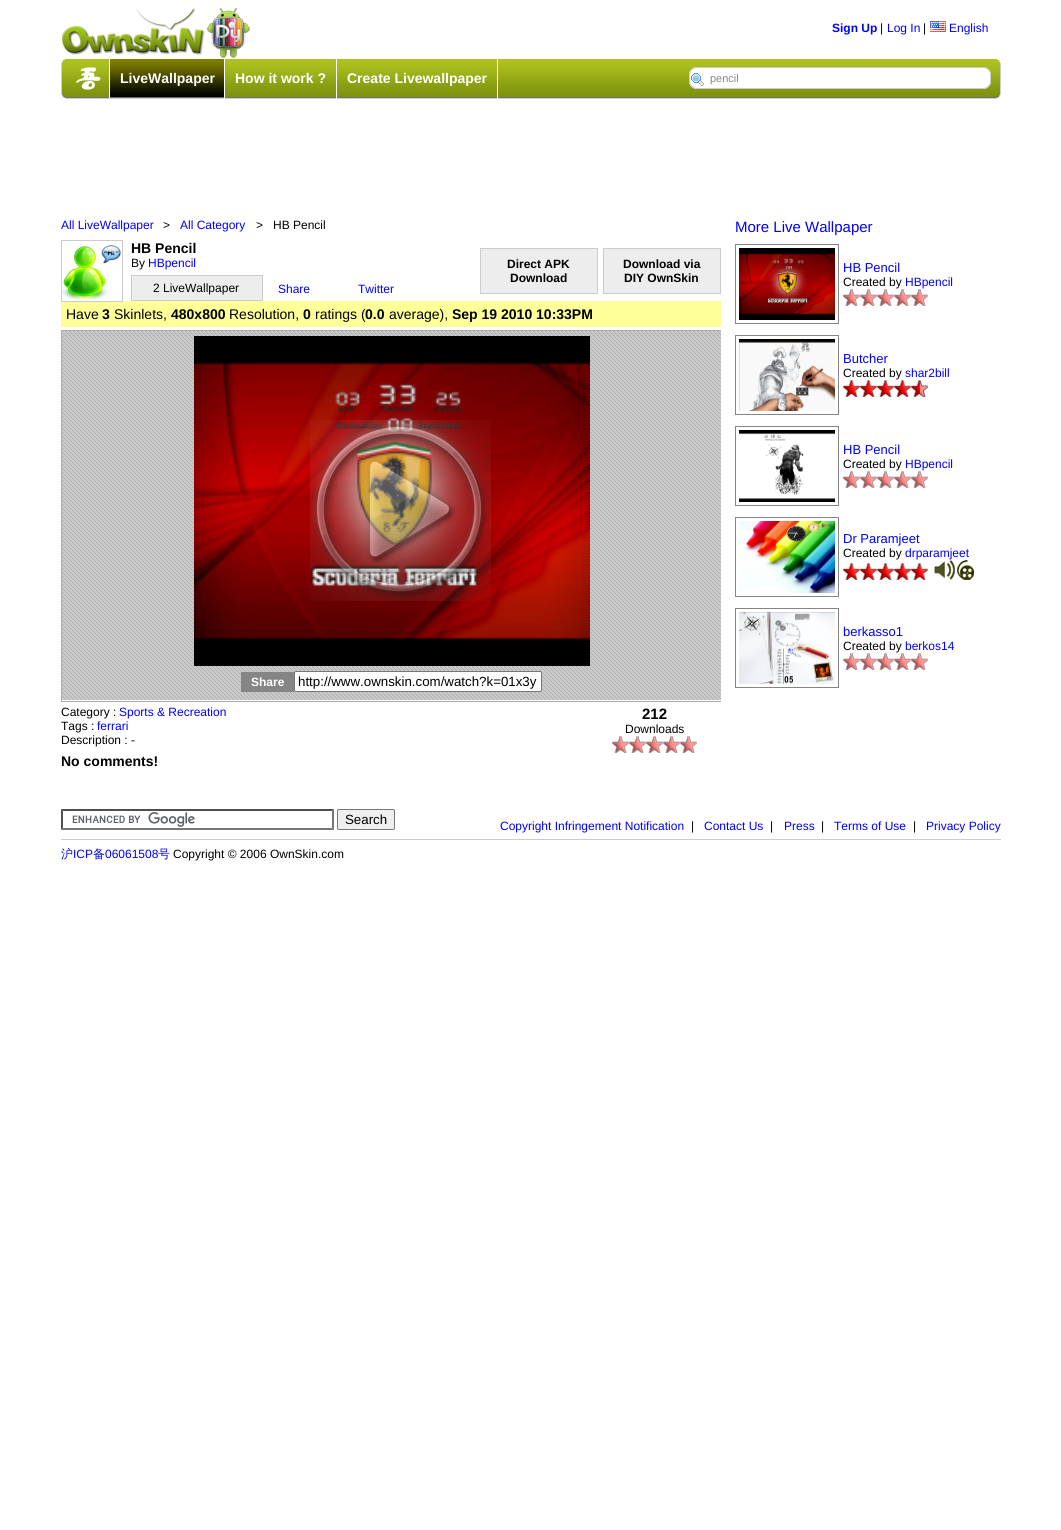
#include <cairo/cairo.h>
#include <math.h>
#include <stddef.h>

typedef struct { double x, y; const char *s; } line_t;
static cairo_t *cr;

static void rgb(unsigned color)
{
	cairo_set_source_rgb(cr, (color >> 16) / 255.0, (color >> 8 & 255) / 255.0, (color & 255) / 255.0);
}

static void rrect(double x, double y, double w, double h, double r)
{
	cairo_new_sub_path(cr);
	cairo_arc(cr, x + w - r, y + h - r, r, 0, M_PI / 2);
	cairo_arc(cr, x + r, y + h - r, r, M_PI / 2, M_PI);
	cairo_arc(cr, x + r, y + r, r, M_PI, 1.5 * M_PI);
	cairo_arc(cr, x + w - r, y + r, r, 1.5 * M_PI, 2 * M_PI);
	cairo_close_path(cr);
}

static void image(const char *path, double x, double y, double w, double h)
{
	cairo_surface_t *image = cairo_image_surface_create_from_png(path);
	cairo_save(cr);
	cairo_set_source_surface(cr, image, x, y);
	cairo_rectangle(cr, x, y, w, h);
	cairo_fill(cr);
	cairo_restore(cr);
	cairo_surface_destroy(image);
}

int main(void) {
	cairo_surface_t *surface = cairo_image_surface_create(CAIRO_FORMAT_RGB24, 1061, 1530);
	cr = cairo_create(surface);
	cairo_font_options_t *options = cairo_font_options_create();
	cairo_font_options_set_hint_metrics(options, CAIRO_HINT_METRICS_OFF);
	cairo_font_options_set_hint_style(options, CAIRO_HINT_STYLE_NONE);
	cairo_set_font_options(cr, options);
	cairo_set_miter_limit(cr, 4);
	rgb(0xffffff);
	cairo_paint(cr);
	image("img/1.png", 62, 8, 188, 50);
	image("img/2.png", 930, 21, 16, 11);
	image("img/3.png", 61, 59, 7, 40);
	image("img/4.png", 68, 59, 926, 40);
	rgb(0xffffff);
	cairo_rectangle(cr, 109, 59, 1, 39);
	cairo_fill(cr);
	image("img/5.png", 76, 67, 25, 23);
	cairo_rectangle(cr, 224, 59, 1, 40);
	cairo_fill(cr);
	image("img/6.png", 110, 59, 114, 38);
	cairo_rectangle(cr, 336, 59, 1, 40);
	cairo_fill(cr);
	cairo_rectangle(cr, 497, 59, 1, 40);
	cairo_fill(cr);
	rrect(689, 67, 302, 22, 8);
	cairo_fill(cr);
	image("img/7.png", 691, 73, 13, 13);
	rrect(689.5, 67.5, 301, 21, 7.5);
	rgb(0xcccccc);
	cairo_set_line_width(cr, 1);
	cairo_stroke(cr);
	image("img/8.png", 994, 59, 7, 40);
	rgb(0xffff99);
	cairo_rectangle(cr, 61, 301, 660, 26);
	cairo_fill(cr);
	cairo_rectangle(cr, 61.5, 240.5, 61, 61);
	rgb(0xcccccc);
	cairo_stroke(cr);
	image("img/9.png", 62, 245, 59, 56);
	rgb(0xededed);
	cairo_rectangle(cr, 131.5, 275.5, 131, 25);
	cairo_fill_preserve(cr);
	rgb(0xcccccc);
	cairo_stroke(cr);
	rgb(0xededed);
	cairo_rectangle(cr, 480.5, 248.5, 117, 45);
	cairo_fill_preserve(cr);
	rgb(0xcccccc);
	cairo_stroke(cr);
	rgb(0xededed);
	cairo_rectangle(cr, 603.5, 248.5, 117, 45);
	cairo_fill_preserve(cr);
	rgb(0xcccccc);
	cairo_stroke(cr);
	image("img/10.png", 62, 331, 659, 369);
	cairo_save(cr);
	cairo_rectangle(cr, 61, 240, 660, 513);
	cairo_clip(cr);
	cairo_rectangle(cr, 61.5, 330.5, 661, 371);
	rgb(0xadadad);
	cairo_stroke(cr);
	cairo_restore(cr);
	image("img/11.png", 194, 336, 396, 330);
	image("img/12.png", 310, 420, 181, 181);
	rgb(0x858585);
	cairo_rectangle(cr, 241, 672, 53, 20);
	cairo_fill(cr);
	rgb(0xffffff);
	rrect(294.5, 671.5, 247, 20, 1.5);
	cairo_fill_preserve(cr);
	rgb(0x767676);
	cairo_stroke(cr);
	image("img/13.png", 612, 736, 17, 17);
	image("img/13.png", 629, 736, 17, 17);
	image("img/13.png", 646, 736, 17, 17);
	image("img/13.png", 663, 736, 17, 17);
	image("img/13.png", 680, 736, 17, 17);
	cairo_rectangle(cr, 735.5, 244.5, 103, 79);
	rgb(0x858585);
	cairo_stroke(cr);
	image("img/14.png", 739, 248, 96, 72);
	image("img/13.png", 843, 289, 17, 17);
	image("img/13.png", 860, 289, 17, 17);
	image("img/13.png", 877, 289, 17, 17);
	image("img/13.png", 894, 289, 17, 17);
	image("img/13.png", 911, 289, 17, 17);
	cairo_rectangle(cr, 735.5, 335.5, 103, 79);
	cairo_stroke(cr);
	image("img/15.png", 739, 339, 96, 72);
	image("img/16.png", 843, 380, 17, 17);
	image("img/16.png", 860, 380, 17, 17);
	image("img/16.png", 877, 380, 17, 17);
	image("img/16.png", 894, 380, 17, 17);
	image("img/17.png", 911, 380, 17, 17);
	cairo_rectangle(cr, 735.5, 426.5, 103, 79);
	cairo_stroke(cr);
	image("img/18.png", 739, 430, 96, 72);
	image("img/13.png", 843, 471, 17, 17);
	image("img/13.png", 860, 471, 17, 17);
	image("img/13.png", 877, 471, 17, 17);
	image("img/13.png", 894, 471, 17, 17);
	image("img/13.png", 911, 471, 17, 17);
	cairo_rectangle(cr, 735.5, 517.5, 103, 79);
	cairo_stroke(cr);
	image("img/19.png", 739, 521, 96, 72);
	image("img/16.png", 843, 563, 17, 17);
	image("img/16.png", 860, 563, 17, 17);
	image("img/16.png", 877, 563, 17, 17);
	image("img/16.png", 894, 563, 17, 17);
	image("img/16.png", 911, 563, 17, 17);
	image("img/20.png", 934, 560, 21, 20);
	image("img/21.png", 957, 560, 17, 20);
	cairo_rectangle(cr, 735.5, 608.5, 103, 79);
	cairo_stroke(cr);
	image("img/22.png", 739, 612, 96, 72);
	image("img/13.png", 843, 653, 17, 17);
	image("img/13.png", 860, 653, 17, 17);
	image("img/13.png", 877, 653, 17, 17);
	image("img/13.png", 894, 653, 17, 17);
	image("img/13.png", 911, 653, 17, 17);
	image("img/23.png", 72, 812, 123, 15);
	rgb(0x4f4f4f);
	cairo_new_path(cr);
	cairo_move_to(cr, 61, 809);
	cairo_line_to(cr, 334, 809);
	cairo_line_to(cr, 332, 811);
	cairo_line_to(cr, 63, 811);
	cairo_close_path(cr);
	cairo_fill(cr);
	rgb(0x767676);
	cairo_new_path(cr);
	cairo_move_to(cr, 334, 809);
	cairo_line_to(cr, 334, 830);
	cairo_line_to(cr, 332, 828);
	cairo_line_to(cr, 332, 811);
	cairo_close_path(cr);
	cairo_fill(cr);
	cairo_new_path(cr);
	cairo_move_to(cr, 334, 830);
	cairo_line_to(cr, 61, 830);
	cairo_line_to(cr, 63, 828);
	cairo_line_to(cr, 332, 828);
	cairo_close_path(cr);
	cairo_fill(cr);
	rgb(0x4f4f4f);
	cairo_new_path(cr);
	cairo_move_to(cr, 61, 830);
	cairo_line_to(cr, 61, 809);
	cairo_line_to(cr, 63, 811);
	cairo_line_to(cr, 63, 828);
	cairo_close_path(cr);
	cairo_fill(cr);
	rgb(0xefefef);
	rrect(337.5, 809.5, 57, 20, 1.5);
	cairo_fill_preserve(cr);
	rgb(0x767676);
	cairo_stroke(cr);
	rgb(0xcccccc);
	cairo_rectangle(cr, 61, 839, 940, 1);
	cairo_fill(cr);
	cairo_select_font_face(cr, "Liberation Sans", CAIRO_FONT_SLANT_NORMAL, CAIRO_FONT_WEIGHT_BOLD);
	cairo_set_font_size(cr, 12);
	rgb(0x0000ff);
	cairo_move_to(cr, 832, 32);
	cairo_show_text(cr, "Sign Up");
	cairo_select_font_face(cr, "Liberation Sans", CAIRO_FONT_SLANT_NORMAL, CAIRO_FONT_WEIGHT_NORMAL);
	rgb(0x000000);
	cairo_move_to(cr, 880, 32);
	cairo_show_text(cr, "|");
	rgb(0x0000ff);
	cairo_move_to(cr, 887, 32);
	cairo_show_text(cr, "Log In");
	rgb(0x000000);
	cairo_move_to(cr, 923, 32);
	cairo_show_text(cr, "|");
	rgb(0x0000ff);
	cairo_move_to(cr, 949, 32);
	cairo_show_text(cr, "English");
	cairo_select_font_face(cr, "Liberation Sans", CAIRO_FONT_SLANT_NORMAL, CAIRO_FONT_WEIGHT_BOLD);
	cairo_set_font_size(cr, 14);
	rgb(0xffffff);
	{
		static const line_t items[] = {
			{120, 83, "LiveWallpaper"},
			{235, 83, "How it work ?"},
			{347, 83, "Create Livewallpaper"},
		};
		for (size_t i = 0; i < sizeof items / sizeof *items; i++) {
			cairo_move_to(cr, items[i].x, items[i].y);
			cairo_show_text(cr, items[i].s);
		}
	}
	cairo_select_font_face(cr, "Liberation Sans", CAIRO_FONT_SLANT_NORMAL, CAIRO_FONT_WEIGHT_NORMAL);
	cairo_set_font_size(cr, 11);
	rgb(0x888888);
	cairo_move_to(cr, 710, 82);
	cairo_show_text(cr, "pencil");
	cairo_set_font_size(cr, 12);
	rgb(0x0000ff);
	cairo_move_to(cr, 61, 229);
	cairo_show_text(cr, "All LiveWallpaper");
	rgb(0x000000);
	cairo_move_to(cr, 163, 229);
	cairo_show_text(cr, ">");
	rgb(0x0000ff);
	cairo_move_to(cr, 180, 229);
	cairo_show_text(cr, "All Category");
	rgb(0x000000);
	cairo_move_to(cr, 256, 229);
	cairo_show_text(cr, ">   HB Pencil");
	cairo_select_font_face(cr, "Liberation Sans", CAIRO_FONT_SLANT_NORMAL, CAIRO_FONT_WEIGHT_BOLD);
	cairo_set_font_size(cr, 14);
	cairo_move_to(cr, 131, 253);
	cairo_show_text(cr, "HB Pencil");
	cairo_select_font_face(cr, "Liberation Sans", CAIRO_FONT_SLANT_NORMAL, CAIRO_FONT_WEIGHT_NORMAL);
	cairo_set_font_size(cr, 12);
	cairo_move_to(cr, 131, 267);
	cairo_show_text(cr, "By");
	rgb(0x0000ff);
	cairo_move_to(cr, 148, 267);
	cairo_show_text(cr, "HBpencil");
	rgb(0x000000);
	cairo_move_to(cr, 153, 292);
	cairo_show_text(cr, "2 LiveWallpaper");
	cairo_select_font_face(cr, "Liberation Sans", CAIRO_FONT_SLANT_NORMAL, CAIRO_FONT_WEIGHT_BOLD);
	{
		static const line_t items[] = {
			{507, 268, "Direct APK"},
			{510, 282, "Download"},
			{623, 268, "Download via"},
			{624, 282, "DIY OwnSkin"},
		};
		for (size_t i = 0; i < sizeof items / sizeof *items; i++) {
			cairo_move_to(cr, items[i].x, items[i].y);
			cairo_show_text(cr, items[i].s);
		}
	}
	cairo_select_font_face(cr, "Liberation Sans", CAIRO_FONT_SLANT_NORMAL, CAIRO_FONT_WEIGHT_NORMAL);
	rgb(0x0000ff);
	cairo_move_to(cr, 278, 293);
	cairo_show_text(cr, "Share");
	cairo_move_to(cr, 358, 293);
	cairo_show_text(cr, "Twitter");
	cairo_set_font_size(cr, 14);
	rgb(0x000000);
	cairo_move_to(cr, 66, 319);
	cairo_show_text(cr, "Have");
	cairo_select_font_face(cr, "Liberation Sans", CAIRO_FONT_SLANT_NORMAL, CAIRO_FONT_WEIGHT_BOLD);
	cairo_move_to(cr, 102, 319);
	cairo_show_text(cr, "3");
	cairo_select_font_face(cr, "Liberation Sans", CAIRO_FONT_SLANT_NORMAL, CAIRO_FONT_WEIGHT_NORMAL);
	cairo_move_to(cr, 114, 319);
	cairo_show_text(cr, "Skinlets,");
	cairo_select_font_face(cr, "Liberation Sans", CAIRO_FONT_SLANT_NORMAL, CAIRO_FONT_WEIGHT_BOLD);
	cairo_move_to(cr, 171, 319);
	cairo_show_text(cr, "480x800");
	cairo_select_font_face(cr, "Liberation Sans", CAIRO_FONT_SLANT_NORMAL, CAIRO_FONT_WEIGHT_NORMAL);
	cairo_move_to(cr, 229, 319);
	cairo_show_text(cr, "Resolution,");
	cairo_select_font_face(cr, "Liberation Sans", CAIRO_FONT_SLANT_NORMAL, CAIRO_FONT_WEIGHT_BOLD);
	cairo_move_to(cr, 303, 319);
	cairo_show_text(cr, "0");
	cairo_select_font_face(cr, "Liberation Sans", CAIRO_FONT_SLANT_NORMAL, CAIRO_FONT_WEIGHT_NORMAL);
	cairo_move_to(cr, 315, 319);
	cairo_show_text(cr, "ratings (");
	cairo_select_font_face(cr, "Liberation Sans", CAIRO_FONT_SLANT_NORMAL, CAIRO_FONT_WEIGHT_BOLD);
	cairo_move_to(cr, 365, 319);
	cairo_show_text(cr, "0.0");
	cairo_select_font_face(cr, "Liberation Sans", CAIRO_FONT_SLANT_NORMAL, CAIRO_FONT_WEIGHT_NORMAL);
	cairo_move_to(cr, 389, 319);
	cairo_show_text(cr, "average),");
	cairo_select_font_face(cr, "Liberation Sans", CAIRO_FONT_SLANT_NORMAL, CAIRO_FONT_WEIGHT_BOLD);
	cairo_move_to(cr, 452, 319);
	cairo_show_text(cr, "Sep 19 2010 10:33PM");
	cairo_set_font_size(cr, 12);
	rgb(0xffffff);
	cairo_move_to(cr, 251, 686);
	cairo_show_text(cr, "Share");
	cairo_select_font_face(cr, "Liberation Sans", CAIRO_FONT_SLANT_NORMAL, CAIRO_FONT_WEIGHT_NORMAL);
	cairo_set_font_size(cr, 13.3);
	rgb(0x000000);
	cairo_move_to(cr, 298, 686);
	cairo_show_text(cr, "http://www.ownskin.com/watch?k=01x3y");
	cairo_set_font_size(cr, 12);
	cairo_move_to(cr, 61, 716);
	cairo_show_text(cr, "Category :");
	rgb(0x0000ff);
	cairo_move_to(cr, 119, 716);
	cairo_show_text(cr, "Sports & Recreation");
	rgb(0x000000);
	cairo_move_to(cr, 61, 730);
	cairo_show_text(cr, "Tags :");
	rgb(0x0000ff);
	cairo_move_to(cr, 97, 730);
	cairo_show_text(cr, "ferrari");
	rgb(0x000000);
	cairo_move_to(cr, 61, 744);
	cairo_show_text(cr, "Description : -");
	cairo_select_font_face(cr, "Liberation Sans", CAIRO_FONT_SLANT_NORMAL, CAIRO_FONT_WEIGHT_BOLD);
	cairo_set_font_size(cr, 15);
	cairo_move_to(cr, 642, 719);
	cairo_show_text(cr, "212");
	cairo_select_font_face(cr, "Liberation Sans", CAIRO_FONT_SLANT_NORMAL, CAIRO_FONT_WEIGHT_NORMAL);
	cairo_set_font_size(cr, 12);
	cairo_move_to(cr, 625, 733);
	cairo_show_text(cr, "Downloads");
	cairo_set_font_size(cr, 15);
	rgb(0x0000ff);
	cairo_move_to(cr, 735, 232);
	cairo_show_text(cr, "More Live Wallpaper");
	cairo_set_font_size(cr, 13);
	cairo_move_to(cr, 843, 272);
	cairo_show_text(cr, "HB Pencil");
	cairo_set_font_size(cr, 12);
	rgb(0x000000);
	cairo_move_to(cr, 843, 286);
	cairo_show_text(cr, "Created by");
	rgb(0x0000ff);
	cairo_move_to(cr, 905, 286);
	cairo_show_text(cr, "HBpencil");
	cairo_set_font_size(cr, 13);
	cairo_move_to(cr, 843, 363);
	cairo_show_text(cr, "Butcher");
	cairo_set_font_size(cr, 12);
	rgb(0x000000);
	cairo_move_to(cr, 843, 377);
	cairo_show_text(cr, "Created by");
	rgb(0x0000ff);
	cairo_move_to(cr, 905, 377);
	cairo_show_text(cr, "shar2bill");
	cairo_set_font_size(cr, 13);
	cairo_move_to(cr, 843, 454);
	cairo_show_text(cr, "HB Pencil");
	cairo_set_font_size(cr, 12);
	rgb(0x000000);
	cairo_move_to(cr, 843, 468);
	cairo_show_text(cr, "Created by");
	rgb(0x0000ff);
	cairo_move_to(cr, 905, 468);
	cairo_show_text(cr, "HBpencil");
	cairo_set_font_size(cr, 13);
	cairo_move_to(cr, 843, 543);
	cairo_show_text(cr, "Dr Paramjeet");
	cairo_set_font_size(cr, 12);
	rgb(0x000000);
	cairo_move_to(cr, 843, 557);
	cairo_show_text(cr, "Created by");
	rgb(0x0000ff);
	cairo_move_to(cr, 905, 557);
	cairo_show_text(cr, "drparamjeet");
	cairo_set_font_size(cr, 13);
	cairo_move_to(cr, 843, 636);
	cairo_show_text(cr, "berkasso1");
	cairo_set_font_size(cr, 12);
	rgb(0x000000);
	cairo_move_to(cr, 843, 650);
	cairo_show_text(cr, "Created by");
	rgb(0x0000ff);
	cairo_move_to(cr, 905, 650);
	cairo_show_text(cr, "berkos14");
	cairo_select_font_face(cr, "Liberation Sans", CAIRO_FONT_SLANT_NORMAL, CAIRO_FONT_WEIGHT_BOLD);
	cairo_set_font_size(cr, 14);
	rgb(0x000000);
	cairo_move_to(cr, 61, 766);
	cairo_show_text(cr, "No comments!");
	cairo_select_font_face(cr, "Liberation Sans", CAIRO_FONT_SLANT_NORMAL, CAIRO_FONT_WEIGHT_NORMAL);
	cairo_set_font_size(cr, 13.3);
	cairo_move_to(cr, 345, 824);
	cairo_show_text(cr, "Search");
	cairo_set_font_size(cr, 12);
	rgb(0x0000ff);
	cairo_move_to(cr, 500, 830);
	cairo_show_text(cr, "Copyright Infringement Notification");
	rgb(0x000000);
	cairo_move_to(cr, 691, 830);
	cairo_show_text(cr, "|");
	rgb(0x0000ff);
	cairo_move_to(cr, 704, 830);
	cairo_show_text(cr, "Contact Us");
	rgb(0x000000);
	cairo_move_to(cr, 770, 830);
	cairo_show_text(cr, "|");
	rgb(0x0000ff);
	cairo_move_to(cr, 784, 830);
	cairo_show_text(cr, "Press");
	rgb(0x000000);
	cairo_move_to(cr, 821, 830);
	cairo_show_text(cr, "|");
	rgb(0x0000ff);
	cairo_move_to(cr, 834, 830);
	cairo_show_text(cr, "Terms of Use");
	rgb(0x000000);
	cairo_move_to(cr, 913, 830);
	cairo_show_text(cr, "|");
	rgb(0x0000ff);
	cairo_move_to(cr, 926, 830);
	cairo_show_text(cr, "Privacy Policy");
	cairo_select_font_face(cr, "WenQuanYi Zen Hei Medium", CAIRO_FONT_SLANT_NORMAL, CAIRO_FONT_WEIGHT_NORMAL);
	cairo_move_to(cr, 61, 858);
	cairo_show_text(cr, "沪");
	cairo_select_font_face(cr, "Liberation Sans", CAIRO_FONT_SLANT_NORMAL, CAIRO_FONT_WEIGHT_NORMAL);
	cairo_move_to(cr, 73, 858);
	cairo_show_text(cr, "ICP");
	cairo_select_font_face(cr, "WenQuanYi Zen Hei Medium", CAIRO_FONT_SLANT_NORMAL, CAIRO_FONT_WEIGHT_NORMAL);
	cairo_move_to(cr, 93, 858);
	cairo_show_text(cr, "备");
	cairo_select_font_face(cr, "Liberation Sans", CAIRO_FONT_SLANT_NORMAL, CAIRO_FONT_WEIGHT_NORMAL);
	cairo_move_to(cr, 105, 858);
	cairo_show_text(cr, "06061508");
	cairo_select_font_face(cr, "WenQuanYi Zen Hei Medium", CAIRO_FONT_SLANT_NORMAL, CAIRO_FONT_WEIGHT_NORMAL);
	cairo_move_to(cr, 158, 858);
	cairo_show_text(cr, "号");
	cairo_select_font_face(cr, "Liberation Sans", CAIRO_FONT_SLANT_NORMAL, CAIRO_FONT_WEIGHT_NORMAL);
	rgb(0x000000);
	cairo_move_to(cr, 173, 858);
	cairo_show_text(cr, "Copyright © 2006 OwnSkin.com");
	cairo_surface_write_to_png(surface, "page.png");
	cairo_font_options_destroy(options);
	cairo_destroy(cr);
	cairo_surface_destroy(surface);
	return 0;
}
